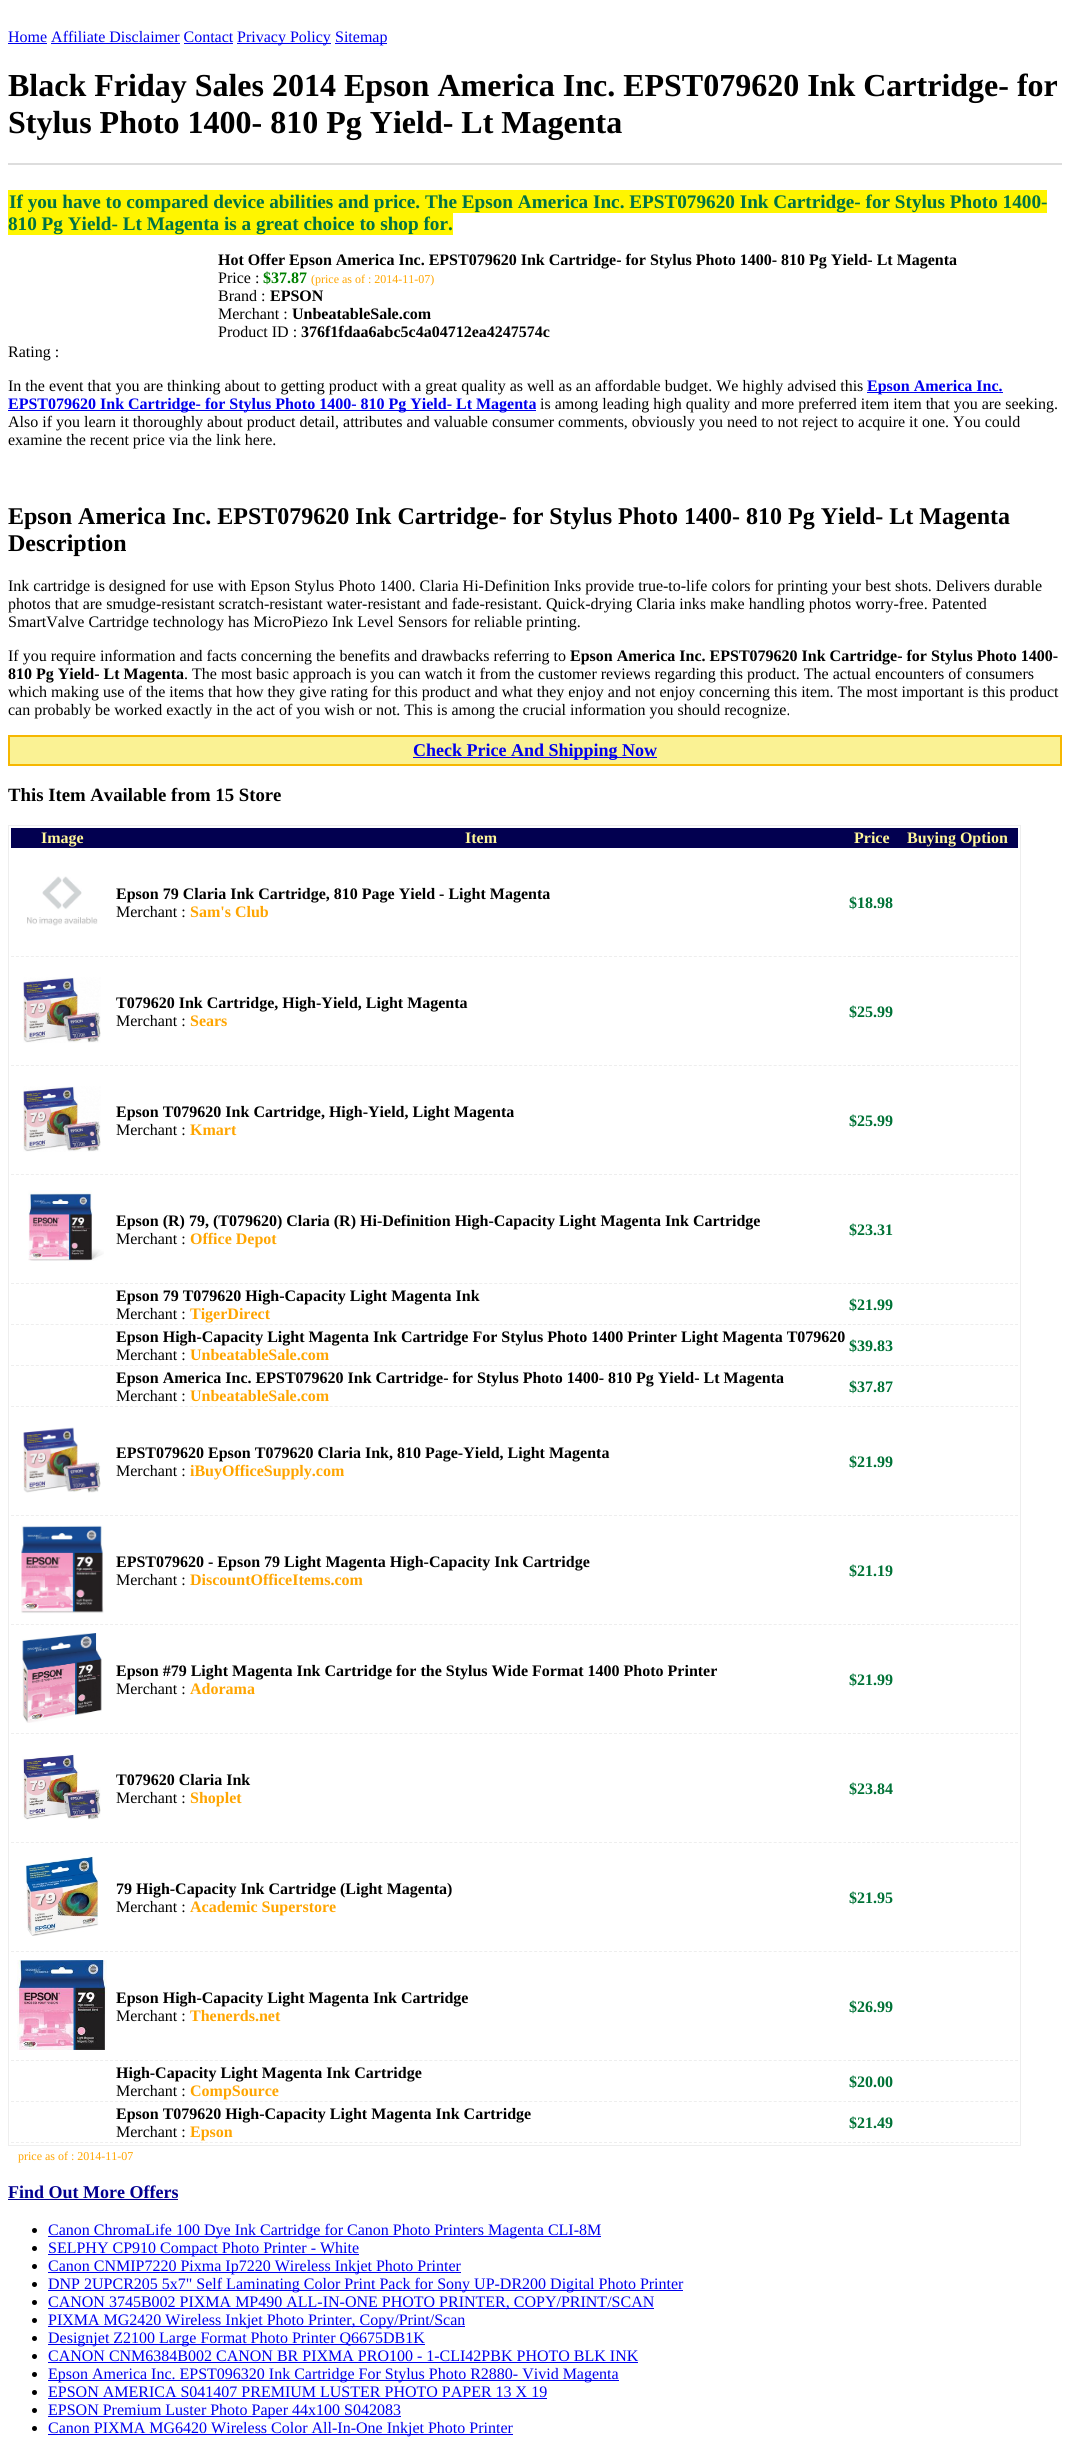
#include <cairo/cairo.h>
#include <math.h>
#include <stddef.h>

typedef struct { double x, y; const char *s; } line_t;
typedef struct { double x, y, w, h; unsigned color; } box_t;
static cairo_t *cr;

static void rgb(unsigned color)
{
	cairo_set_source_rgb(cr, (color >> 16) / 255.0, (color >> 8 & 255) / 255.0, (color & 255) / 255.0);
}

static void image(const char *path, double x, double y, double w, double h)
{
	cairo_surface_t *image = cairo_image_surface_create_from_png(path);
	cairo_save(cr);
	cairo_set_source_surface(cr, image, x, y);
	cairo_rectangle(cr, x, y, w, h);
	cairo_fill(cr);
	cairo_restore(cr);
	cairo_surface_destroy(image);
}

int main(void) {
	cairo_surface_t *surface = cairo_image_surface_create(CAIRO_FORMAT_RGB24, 1070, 2443);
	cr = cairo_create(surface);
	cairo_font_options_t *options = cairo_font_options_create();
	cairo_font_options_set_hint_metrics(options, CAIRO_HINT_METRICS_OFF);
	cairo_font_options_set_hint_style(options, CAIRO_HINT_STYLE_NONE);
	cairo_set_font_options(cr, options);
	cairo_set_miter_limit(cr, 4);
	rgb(0xffffff);
	cairo_paint(cr);
	{
		static const box_t items[] = {
			{8, 43, 39, 1, 0x0000ee},
			{237, 43, 94, 1, 0x0000ee},
			{335, 43, 52, 1, 0x0000ee},
			{51, 43, 129, 1, 0x0000ee},
			{184, 43, 49, 1, 0x0000ee},
			{8, 163, 1054, 2, 0xdddddd},
			{8, 190, 1039, 23, 0xfff500},
			{8, 213, 445, 22, 0xfff500},
			{867, 392, 136, 1, 0x0000ee},
			{8, 410, 528, 1, 0x0000ee},
		};
		for (size_t i = 0; i < sizeof items / sizeof *items; i++) {
			rgb(items[i].color);
			cairo_rectangle(cr, items[i].x, items[i].y, items[i].w, items[i].h);
			cairo_fill(cr);
		}
	}
	rgb(0xfaf294);
	cairo_rectangle(cr, 9, 736, 1052, 29);
	cairo_fill_preserve(cr);
	rgb(0xf6b700);
	cairo_stroke(cr);
	rgb(0x0000ee);
	cairo_rectangle(cr, 413, 757, 244, 1);
	cairo_fill(cr);
	cairo_rectangle(cr, 8.5, 825.5, 1012, 1320);
	rgb(0xeeeeee);
	cairo_set_line_width(cr, 1);
	cairo_stroke(cr);
	rgb(0x020050);
	cairo_rectangle(cr, 11, 828, 1007, 20);
	cairo_fill(cr);
	cairo_new_path(cr);
	cairo_move_to(cr, 11, 956.5);
	cairo_line_to(cr, 113, 956.5);
	rgb(0xeeeeee);
	cairo_set_dash(cr, (double[]){3, 1.95}, 2, 0);
	cairo_stroke(cr);
	image("img/1.png", 27, 876, 71, 50);
	cairo_new_path(cr);
	cairo_move_to(cr, 115, 956.5);
	cairo_line_to(cr, 846, 956.5);
	cairo_set_dash(cr, (double[]){3, 1.99}, 2, 0);
	cairo_stroke(cr);
	cairo_new_path(cr);
	cairo_move_to(cr, 848, 956.5);
	cairo_line_to(cr, 894, 956.5);
	rgb(0xebebeb);
	cairo_set_dash(cr, (double[]){3, 1.78}, 2, 0);
	cairo_stroke(cr);
	cairo_new_path(cr);
	cairo_move_to(cr, 896, 956.5);
	cairo_line_to(cr, 1018, 956.5);
	rgb(0xeeeeee);
	cairo_set_dash(cr, (double[]){3, 1.96}, 2, 0);
	cairo_stroke(cr);
	cairo_new_path(cr);
	cairo_move_to(cr, 11, 1065.5);
	cairo_line_to(cr, 113, 1065.5);
	cairo_set_dash(cr, (double[]){3, 1.95}, 2, 0);
	cairo_stroke(cr);
	image("img/2.png", 23, 977, 78, 66);
	cairo_new_path(cr);
	cairo_move_to(cr, 115, 1065.5);
	cairo_line_to(cr, 846, 1065.5);
	cairo_set_dash(cr, (double[]){3, 1.99}, 2, 0);
	cairo_stroke(cr);
	cairo_new_path(cr);
	cairo_move_to(cr, 848, 1065.5);
	cairo_line_to(cr, 894, 1065.5);
	rgb(0xebebeb);
	cairo_set_dash(cr, (double[]){3, 1.78}, 2, 0);
	cairo_stroke(cr);
	cairo_new_path(cr);
	cairo_move_to(cr, 896, 1065.5);
	cairo_line_to(cr, 1018, 1065.5);
	rgb(0xeeeeee);
	cairo_set_dash(cr, (double[]){3, 1.96}, 2, 0);
	cairo_stroke(cr);
	cairo_new_path(cr);
	cairo_move_to(cr, 11, 1174.5);
	cairo_line_to(cr, 113, 1174.5);
	cairo_set_dash(cr, (double[]){3, 1.95}, 2, 0);
	cairo_stroke(cr);
	image("img/2.png", 23, 1086, 78, 66);
	cairo_new_path(cr);
	cairo_move_to(cr, 115, 1174.5);
	cairo_line_to(cr, 846, 1174.5);
	cairo_set_dash(cr, (double[]){3, 1.99}, 2, 0);
	cairo_stroke(cr);
	cairo_new_path(cr);
	cairo_move_to(cr, 848, 1174.5);
	cairo_line_to(cr, 894, 1174.5);
	rgb(0xebebeb);
	cairo_set_dash(cr, (double[]){3, 1.78}, 2, 0);
	cairo_stroke(cr);
	cairo_new_path(cr);
	cairo_move_to(cr, 896, 1174.5);
	cairo_line_to(cr, 1018, 1174.5);
	rgb(0xeeeeee);
	cairo_set_dash(cr, (double[]){3, 1.96}, 2, 0);
	cairo_stroke(cr);
	cairo_new_path(cr);
	cairo_move_to(cr, 11, 1283.5);
	cairo_line_to(cr, 113, 1283.5);
	cairo_set_dash(cr, (double[]){3, 1.95}, 2, 0);
	cairo_stroke(cr);
	image("img/3.png", 28, 1190, 76, 72);
	cairo_new_path(cr);
	cairo_move_to(cr, 115, 1283.5);
	cairo_line_to(cr, 846, 1283.5);
	cairo_set_dash(cr, (double[]){3, 1.99}, 2, 0);
	cairo_stroke(cr);
	cairo_new_path(cr);
	cairo_move_to(cr, 848, 1283.5);
	cairo_line_to(cr, 894, 1283.5);
	rgb(0xebebeb);
	cairo_set_dash(cr, (double[]){3, 1.78}, 2, 0);
	cairo_stroke(cr);
	cairo_new_path(cr);
	cairo_move_to(cr, 896, 1283.5);
	cairo_line_to(cr, 1018, 1283.5);
	rgb(0xeeeeee);
	cairo_set_dash(cr, (double[]){3, 1.96}, 2, 0);
	cairo_stroke(cr);
	cairo_new_path(cr);
	cairo_move_to(cr, 115, 1324.5);
	cairo_line_to(cr, 846, 1324.5);
	cairo_set_dash(cr, (double[]){3, 1.99}, 2, 0);
	cairo_stroke(cr);
	cairo_new_path(cr);
	cairo_move_to(cr, 848, 1324.5);
	cairo_line_to(cr, 894, 1324.5);
	rgb(0xebebeb);
	cairo_set_dash(cr, (double[]){3, 1.78}, 2, 0);
	cairo_stroke(cr);
	cairo_new_path(cr);
	cairo_move_to(cr, 11, 1324.5);
	cairo_line_to(cr, 113, 1324.5);
	rgb(0xeeeeee);
	cairo_set_dash(cr, (double[]){3, 1.95}, 2, 0);
	cairo_stroke(cr);
	cairo_new_path(cr);
	cairo_move_to(cr, 896, 1324.5);
	cairo_line_to(cr, 1018, 1324.5);
	cairo_set_dash(cr, (double[]){3, 1.96}, 2, 0);
	cairo_stroke(cr);
	cairo_new_path(cr);
	cairo_move_to(cr, 115, 1365.5);
	cairo_line_to(cr, 846, 1365.5);
	cairo_set_dash(cr, (double[]){3, 1.99}, 2, 0);
	cairo_stroke(cr);
	cairo_new_path(cr);
	cairo_move_to(cr, 848, 1365.5);
	cairo_line_to(cr, 894, 1365.5);
	rgb(0xebebeb);
	cairo_set_dash(cr, (double[]){3, 1.78}, 2, 0);
	cairo_stroke(cr);
	cairo_new_path(cr);
	cairo_move_to(cr, 11, 1365.5);
	cairo_line_to(cr, 113, 1365.5);
	rgb(0xeeeeee);
	cairo_set_dash(cr, (double[]){3, 1.95}, 2, 0);
	cairo_stroke(cr);
	cairo_new_path(cr);
	cairo_move_to(cr, 896, 1365.5);
	cairo_line_to(cr, 1018, 1365.5);
	cairo_set_dash(cr, (double[]){3, 1.96}, 2, 0);
	cairo_stroke(cr);
	cairo_new_path(cr);
	cairo_move_to(cr, 115, 1406.5);
	cairo_line_to(cr, 846, 1406.5);
	cairo_set_dash(cr, (double[]){3, 1.99}, 2, 0);
	cairo_stroke(cr);
	cairo_new_path(cr);
	cairo_move_to(cr, 848, 1406.5);
	cairo_line_to(cr, 894, 1406.5);
	rgb(0xebebeb);
	cairo_set_dash(cr, (double[]){3, 1.78}, 2, 0);
	cairo_stroke(cr);
	cairo_new_path(cr);
	cairo_move_to(cr, 11, 1406.5);
	cairo_line_to(cr, 113, 1406.5);
	rgb(0xeeeeee);
	cairo_set_dash(cr, (double[]){3, 1.95}, 2, 0);
	cairo_stroke(cr);
	cairo_new_path(cr);
	cairo_move_to(cr, 896, 1406.5);
	cairo_line_to(cr, 1018, 1406.5);
	cairo_set_dash(cr, (double[]){3, 1.96}, 2, 0);
	cairo_stroke(cr);
	cairo_new_path(cr);
	cairo_move_to(cr, 11, 1515.5);
	cairo_line_to(cr, 113, 1515.5);
	cairo_set_dash(cr, (double[]){3, 1.95}, 2, 0);
	cairo_stroke(cr);
	image("img/4.png", 23, 1427, 78, 66);
	cairo_new_path(cr);
	cairo_move_to(cr, 115, 1515.5);
	cairo_line_to(cr, 846, 1515.5);
	cairo_set_dash(cr, (double[]){3, 1.99}, 2, 0);
	cairo_stroke(cr);
	cairo_new_path(cr);
	cairo_move_to(cr, 848, 1515.5);
	cairo_line_to(cr, 894, 1515.5);
	rgb(0xebebeb);
	cairo_set_dash(cr, (double[]){3, 1.78}, 2, 0);
	cairo_stroke(cr);
	cairo_new_path(cr);
	cairo_move_to(cr, 896, 1515.5);
	cairo_line_to(cr, 1018, 1515.5);
	rgb(0xeeeeee);
	cairo_set_dash(cr, (double[]){3, 1.96}, 2, 0);
	cairo_stroke(cr);
	cairo_new_path(cr);
	cairo_move_to(cr, 11, 1624.5);
	cairo_line_to(cr, 113, 1624.5);
	cairo_set_dash(cr, (double[]){3, 1.95}, 2, 0);
	cairo_stroke(cr);
	image("img/5.png", 21, 1525, 83, 89);
	cairo_new_path(cr);
	cairo_move_to(cr, 115, 1624.5);
	cairo_line_to(cr, 846, 1624.5);
	cairo_set_dash(cr, (double[]){3, 1.99}, 2, 0);
	cairo_stroke(cr);
	cairo_new_path(cr);
	cairo_move_to(cr, 848, 1624.5);
	cairo_line_to(cr, 894, 1624.5);
	rgb(0xebebeb);
	cairo_set_dash(cr, (double[]){3, 1.78}, 2, 0);
	cairo_stroke(cr);
	cairo_new_path(cr);
	cairo_move_to(cr, 896, 1624.5);
	cairo_line_to(cr, 1018, 1624.5);
	rgb(0xeeeeee);
	cairo_set_dash(cr, (double[]){3, 1.96}, 2, 0);
	cairo_stroke(cr);
	cairo_new_path(cr);
	cairo_move_to(cr, 11, 1733.5);
	cairo_line_to(cr, 113, 1733.5);
	cairo_set_dash(cr, (double[]){3, 1.95}, 2, 0);
	cairo_stroke(cr);
	image("img/6.png", 22, 1633, 80, 90);
	cairo_new_path(cr);
	cairo_move_to(cr, 115, 1733.5);
	cairo_line_to(cr, 846, 1733.5);
	cairo_set_dash(cr, (double[]){3, 1.99}, 2, 0);
	cairo_stroke(cr);
	cairo_new_path(cr);
	cairo_move_to(cr, 848, 1733.5);
	cairo_line_to(cr, 894, 1733.5);
	rgb(0xebebeb);
	cairo_set_dash(cr, (double[]){3, 1.78}, 2, 0);
	cairo_stroke(cr);
	cairo_new_path(cr);
	cairo_move_to(cr, 896, 1733.5);
	cairo_line_to(cr, 1018, 1733.5);
	rgb(0xeeeeee);
	cairo_set_dash(cr, (double[]){3, 1.96}, 2, 0);
	cairo_stroke(cr);
	cairo_new_path(cr);
	cairo_move_to(cr, 11, 1842.5);
	cairo_line_to(cr, 113, 1842.5);
	cairo_set_dash(cr, (double[]){3, 1.95}, 2, 0);
	cairo_stroke(cr);
	image("img/7.png", 22, 1754, 79, 66);
	cairo_new_path(cr);
	cairo_move_to(cr, 115, 1842.5);
	cairo_line_to(cr, 846, 1842.5);
	cairo_set_dash(cr, (double[]){3, 1.99}, 2, 0);
	cairo_stroke(cr);
	cairo_new_path(cr);
	cairo_move_to(cr, 848, 1842.5);
	cairo_line_to(cr, 894, 1842.5);
	rgb(0xebebeb);
	cairo_set_dash(cr, (double[]){3, 1.78}, 2, 0);
	cairo_stroke(cr);
	cairo_new_path(cr);
	cairo_move_to(cr, 896, 1842.5);
	cairo_line_to(cr, 1018, 1842.5);
	rgb(0xeeeeee);
	cairo_set_dash(cr, (double[]){3, 1.96}, 2, 0);
	cairo_stroke(cr);
	cairo_new_path(cr);
	cairo_move_to(cr, 11, 1951.5);
	cairo_line_to(cr, 113, 1951.5);
	cairo_set_dash(cr, (double[]){3, 1.95}, 2, 0);
	cairo_stroke(cr);
	image("img/8.png", 25, 1856, 74, 80);
	cairo_new_path(cr);
	cairo_move_to(cr, 115, 1951.5);
	cairo_line_to(cr, 846, 1951.5);
	cairo_set_dash(cr, (double[]){3, 1.99}, 2, 0);
	cairo_stroke(cr);
	cairo_new_path(cr);
	cairo_move_to(cr, 848, 1951.5);
	cairo_line_to(cr, 894, 1951.5);
	rgb(0xebebeb);
	cairo_set_dash(cr, (double[]){3, 1.78}, 2, 0);
	cairo_stroke(cr);
	cairo_new_path(cr);
	cairo_move_to(cr, 896, 1951.5);
	cairo_line_to(cr, 1018, 1951.5);
	rgb(0xeeeeee);
	cairo_set_dash(cr, (double[]){3, 1.96}, 2, 0);
	cairo_stroke(cr);
	cairo_new_path(cr);
	cairo_move_to(cr, 11, 2060.5);
	cairo_line_to(cr, 113, 2060.5);
	cairo_set_dash(cr, (double[]){3, 1.95}, 2, 0);
	cairo_stroke(cr);
	image("img/9.png", 17, 1960, 90, 90);
	cairo_new_path(cr);
	cairo_move_to(cr, 115, 2060.5);
	cairo_line_to(cr, 846, 2060.5);
	cairo_set_dash(cr, (double[]){3, 1.99}, 2, 0);
	cairo_stroke(cr);
	cairo_new_path(cr);
	cairo_move_to(cr, 848, 2060.5);
	cairo_line_to(cr, 894, 2060.5);
	rgb(0xebebeb);
	cairo_set_dash(cr, (double[]){3, 1.78}, 2, 0);
	cairo_stroke(cr);
	cairo_new_path(cr);
	cairo_move_to(cr, 896, 2060.5);
	cairo_line_to(cr, 1018, 2060.5);
	rgb(0xeeeeee);
	cairo_set_dash(cr, (double[]){3, 1.96}, 2, 0);
	cairo_stroke(cr);
	cairo_new_path(cr);
	cairo_move_to(cr, 115, 2101.5);
	cairo_line_to(cr, 846, 2101.5);
	cairo_set_dash(cr, (double[]){3, 1.99}, 2, 0);
	cairo_stroke(cr);
	cairo_new_path(cr);
	cairo_move_to(cr, 848, 2101.5);
	cairo_line_to(cr, 894, 2101.5);
	rgb(0xebebeb);
	cairo_set_dash(cr, (double[]){3, 1.78}, 2, 0);
	cairo_stroke(cr);
	cairo_new_path(cr);
	cairo_move_to(cr, 11, 2101.5);
	cairo_line_to(cr, 113, 2101.5);
	rgb(0xeeeeee);
	cairo_set_dash(cr, (double[]){3, 1.95}, 2, 0);
	cairo_stroke(cr);
	cairo_new_path(cr);
	cairo_move_to(cr, 896, 2101.5);
	cairo_line_to(cr, 1018, 2101.5);
	cairo_set_dash(cr, (double[]){3, 1.96}, 2, 0);
	cairo_stroke(cr);
	cairo_new_path(cr);
	cairo_move_to(cr, 115, 2142.5);
	cairo_line_to(cr, 846, 2142.5);
	cairo_set_dash(cr, (double[]){3, 1.99}, 2, 0);
	cairo_stroke(cr);
	cairo_new_path(cr);
	cairo_move_to(cr, 848, 2142.5);
	cairo_line_to(cr, 894, 2142.5);
	rgb(0xebebeb);
	cairo_set_dash(cr, (double[]){3, 1.78}, 2, 0);
	cairo_stroke(cr);
	cairo_new_path(cr);
	cairo_move_to(cr, 11, 2142.5);
	cairo_line_to(cr, 113, 2142.5);
	rgb(0xeeeeee);
	cairo_set_dash(cr, (double[]){3, 1.95}, 2, 0);
	cairo_stroke(cr);
	cairo_new_path(cr);
	cairo_move_to(cr, 896, 2142.5);
	cairo_line_to(cr, 1018, 2142.5);
	cairo_set_dash(cr, (double[]){3, 1.96}, 2, 0);
	cairo_stroke(cr);
	rgb(0x020090);
	cairo_rectangle(cr, 8, 2199, 170, 1);
	cairo_fill(cr);
	rgb(0x000000);
	cairo_arc(cr, 34.5, 2230.5, 2.5, 0, 2 * M_PI);
	cairo_fill(cr);
	rgb(0x0000ee);
	cairo_rectangle(cr, 48, 2236, 553, 1);
	cairo_fill(cr);
	rgb(0x000000);
	cairo_arc(cr, 34.5, 2248.5, 2.5, 0, 2 * M_PI);
	cairo_fill(cr);
	rgb(0x0000ee);
	cairo_rectangle(cr, 48, 2254, 311, 1);
	cairo_fill(cr);
	rgb(0x000000);
	cairo_arc(cr, 34.5, 2266.5, 2.5, 0, 2 * M_PI);
	cairo_fill(cr);
	rgb(0x0000ee);
	cairo_rectangle(cr, 48, 2272, 413, 1);
	cairo_fill(cr);
	rgb(0x000000);
	cairo_arc(cr, 34.5, 2284.5, 2.5, 0, 2 * M_PI);
	cairo_fill(cr);
	rgb(0x0000ee);
	cairo_rectangle(cr, 48, 2290, 635, 1);
	cairo_fill(cr);
	rgb(0x000000);
	cairo_arc(cr, 34.5, 2302.5, 2.5, 0, 2 * M_PI);
	cairo_fill(cr);
	rgb(0x0000ee);
	cairo_rectangle(cr, 48, 2308, 606, 1);
	cairo_fill(cr);
	rgb(0x000000);
	cairo_arc(cr, 34.5, 2320.5, 2.5, 0, 2 * M_PI);
	cairo_fill(cr);
	rgb(0x0000ee);
	cairo_rectangle(cr, 48, 2326, 417, 1);
	cairo_fill(cr);
	rgb(0x000000);
	cairo_arc(cr, 34.5, 2338.5, 2.5, 0, 2 * M_PI);
	cairo_fill(cr);
	rgb(0x0000ee);
	cairo_rectangle(cr, 48, 2344, 377, 1);
	cairo_fill(cr);
	rgb(0x000000);
	cairo_arc(cr, 34.5, 2356.5, 2.5, 0, 2 * M_PI);
	cairo_fill(cr);
	rgb(0x0000ee);
	cairo_rectangle(cr, 48, 2362, 590, 1);
	cairo_fill(cr);
	rgb(0x000000);
	cairo_arc(cr, 34.5, 2374.5, 2.5, 0, 2 * M_PI);
	cairo_fill(cr);
	rgb(0x0000ee);
	cairo_rectangle(cr, 48, 2380, 571, 1);
	cairo_fill(cr);
	rgb(0x000000);
	cairo_arc(cr, 34.5, 2392.5, 2.5, 0, 2 * M_PI);
	cairo_fill(cr);
	rgb(0x0000ee);
	cairo_rectangle(cr, 48, 2398, 499, 1);
	cairo_fill(cr);
	rgb(0x000000);
	cairo_arc(cr, 34.5, 2410.5, 2.5, 0, 2 * M_PI);
	cairo_fill(cr);
	rgb(0x0000ee);
	cairo_rectangle(cr, 48, 2416, 353, 1);
	cairo_fill(cr);
	rgb(0x000000);
	cairo_arc(cr, 34.5, 2428.5, 2.5, 0, 2 * M_PI);
	cairo_fill(cr);
	rgb(0x0000ee);
	cairo_rectangle(cr, 48, 2434, 465, 1);
	cairo_fill(cr);
	cairo_select_font_face(cr, "Liberation Serif", CAIRO_FONT_SLANT_NORMAL, CAIRO_FONT_WEIGHT_NORMAL);
	cairo_set_font_size(cr, 16);
	{
		static const line_t items[] = {
			{8, 42, "Home Affiliate Disclaimer Contact"},
			{237, 42, "Privacy Policy"},
			{335, 42, "Sitemap"},
		};
		for (size_t i = 0; i < sizeof items / sizeof *items; i++) {
			cairo_move_to(cr, items[i].x, items[i].y);
			cairo_show_text(cr, items[i].s);
		}
	}
	cairo_select_font_face(cr, "Liberation Serif", CAIRO_FONT_SLANT_NORMAL, CAIRO_FONT_WEIGHT_BOLD);
	cairo_set_font_size(cr, 32);
	rgb(0x000000);
	cairo_move_to(cr, 8, 96);
	cairo_show_text(cr, "Black Friday Sales 2014 Epson America Inc. EPST079620 Ink Cartridge- for");
	cairo_move_to(cr, 8, 133);
	cairo_show_text(cr, "Stylus Photo 1400- 810 Pg Yield- Lt Magenta");
	cairo_set_font_size(cr, 19.2);
	rgb(0x007244);
	cairo_move_to(cr, 9, 208);
	cairo_show_text(cr, "If you have to compared device abilities and price. The Epson America Inc. EPST079620 Ink Cartridge- for Stylus Photo 1400-");
	cairo_move_to(cr, 8, 230);
	cairo_show_text(cr, "810 Pg Yield- Lt Magenta is a great choice to shop for.");
	cairo_set_font_size(cr, 16);
	rgb(0x000000);
	cairo_move_to(cr, 218, 265);
	cairo_show_text(cr, "Hot Offer Epson America Inc. EPST079620 Ink Cartridge- for Stylus Photo 1400- 810 Pg Yield- Lt Magenta");
	cairo_select_font_face(cr, "Liberation Serif", CAIRO_FONT_SLANT_NORMAL, CAIRO_FONT_WEIGHT_NORMAL);
	cairo_move_to(cr, 218, 283);
	cairo_show_text(cr, "Price :");
	cairo_select_font_face(cr, "Liberation Serif", CAIRO_FONT_SLANT_NORMAL, CAIRO_FONT_WEIGHT_BOLD);
	rgb(0x008000);
	cairo_move_to(cr, 263, 283);
	cairo_show_text(cr, "$37.87");
	cairo_select_font_face(cr, "Liberation Serif", CAIRO_FONT_SLANT_NORMAL, CAIRO_FONT_WEIGHT_NORMAL);
	cairo_set_font_size(cr, 12);
	rgb(0xffa500);
	cairo_move_to(cr, 311, 283);
	cairo_show_text(cr, "(price as of : 2014-11-07)");
	cairo_set_font_size(cr, 16);
	rgb(0x000000);
	cairo_move_to(cr, 218, 301);
	cairo_show_text(cr, "Brand :");
	cairo_select_font_face(cr, "Liberation Serif", CAIRO_FONT_SLANT_NORMAL, CAIRO_FONT_WEIGHT_BOLD);
	cairo_move_to(cr, 270, 301);
	cairo_show_text(cr, "EPSON");
	cairo_select_font_face(cr, "Liberation Serif", CAIRO_FONT_SLANT_NORMAL, CAIRO_FONT_WEIGHT_NORMAL);
	cairo_move_to(cr, 218, 319);
	cairo_show_text(cr, "Merchant :");
	cairo_select_font_face(cr, "Liberation Serif", CAIRO_FONT_SLANT_NORMAL, CAIRO_FONT_WEIGHT_BOLD);
	cairo_move_to(cr, 292, 319);
	cairo_show_text(cr, "UnbeatableSale.com");
	cairo_select_font_face(cr, "Liberation Serif", CAIRO_FONT_SLANT_NORMAL, CAIRO_FONT_WEIGHT_NORMAL);
	cairo_move_to(cr, 218, 337);
	cairo_show_text(cr, "Product ID :");
	cairo_select_font_face(cr, "Liberation Serif", CAIRO_FONT_SLANT_NORMAL, CAIRO_FONT_WEIGHT_BOLD);
	cairo_move_to(cr, 301, 337);
	cairo_show_text(cr, "376f1fdaa6abc5c4a04712ea4247574c");
	cairo_select_font_face(cr, "Liberation Serif", CAIRO_FONT_SLANT_NORMAL, CAIRO_FONT_WEIGHT_NORMAL);
	cairo_move_to(cr, 8, 357);
	cairo_show_text(cr, "Rating :");
	cairo_move_to(cr, 8, 391);
	cairo_show_text(cr, "In the event that you are thinking about to getting product with a great quality as well as an affordable budget. We highly advised this");
	cairo_select_font_face(cr, "Liberation Serif", CAIRO_FONT_SLANT_NORMAL, CAIRO_FONT_WEIGHT_BOLD);
	rgb(0x0000ee);
	cairo_move_to(cr, 867, 391);
	cairo_show_text(cr, "Epson America Inc.");
	cairo_move_to(cr, 8, 409);
	cairo_show_text(cr, "EPST079620 Ink Cartridge- for Stylus Photo 1400- 810 Pg Yield- Lt Magenta");
	cairo_select_font_face(cr, "Liberation Serif", CAIRO_FONT_SLANT_NORMAL, CAIRO_FONT_WEIGHT_NORMAL);
	rgb(0x000000);
	{
		static const line_t items[] = {
			{540, 409, "is among leading high quality and more preferred item item that you are seeking."},
			{8, 427, "Also if you learn it thoroughly about product detail, attributes and valuable consumer comments, obviously you need to not reject to acquire it one. You could"},
			{8, 445, "examine the recent price via the link here."},
		};
		for (size_t i = 0; i < sizeof items / sizeof *items; i++) {
			cairo_move_to(cr, items[i].x, items[i].y);
			cairo_show_text(cr, items[i].s);
		}
	}
	cairo_select_font_face(cr, "Liberation Serif", CAIRO_FONT_SLANT_NORMAL, CAIRO_FONT_WEIGHT_BOLD);
	cairo_set_font_size(cr, 24);
	cairo_move_to(cr, 8, 524);
	cairo_show_text(cr, "Epson America Inc. EPST079620 Ink Cartridge- for Stylus Photo 1400- 810 Pg Yield- Lt Magenta");
	cairo_move_to(cr, 8, 551);
	cairo_show_text(cr, "Description");
	cairo_select_font_face(cr, "Liberation Serif", CAIRO_FONT_SLANT_NORMAL, CAIRO_FONT_WEIGHT_NORMAL);
	cairo_set_font_size(cr, 16);
	{
		static const line_t items[] = {
			{8, 591, "Ink cartridge is designed for use with Epson Stylus Photo 1400. Claria Hi-Definition Inks provide true-to-life colors for printing your best shots. Delivers durable"},
			{8, 609, "photos that are smudge-resistant scratch-resistant water-resistant and fade-resistant. Quick-drying Claria inks make handling photos worry-free. Patented"},
			{8, 627, "SmartValve Cartridge technology has MicroPiezo Ink Level Sensors for reliable printing."},
			{8, 661, "If you require information and facts concerning the benefits and drawbacks referring to"},
		};
		for (size_t i = 0; i < sizeof items / sizeof *items; i++) {
			cairo_move_to(cr, items[i].x, items[i].y);
			cairo_show_text(cr, items[i].s);
		}
	}
	cairo_select_font_face(cr, "Liberation Serif", CAIRO_FONT_SLANT_NORMAL, CAIRO_FONT_WEIGHT_BOLD);
	cairo_move_to(cr, 570, 661);
	cairo_show_text(cr, "Epson America Inc. EPST079620 Ink Cartridge- for Stylus Photo 1400-");
	cairo_move_to(cr, 8, 679);
	cairo_show_text(cr, "810 Pg Yield- Lt Magenta");
	cairo_select_font_face(cr, "Liberation Serif", CAIRO_FONT_SLANT_NORMAL, CAIRO_FONT_WEIGHT_NORMAL);
	{
		static const line_t items[] = {
			{184, 679, ". The most basic approach is you can watch it from the customer reviews regarding this product. The actual encounters of consumers"},
			{8, 697, "which making use of the items that how they give rating for this product and what they enjoy and not enjoy concerning this item. The most important is this product"},
			{8, 715, "can probably be worked exactly in the act of you wish or not. This is among the crucial information you should recognize."},
		};
		for (size_t i = 0; i < sizeof items / sizeof *items; i++) {
			cairo_move_to(cr, items[i].x, items[i].y);
			cairo_show_text(cr, items[i].s);
		}
	}
	cairo_select_font_face(cr, "Liberation Serif", CAIRO_FONT_SLANT_NORMAL, CAIRO_FONT_WEIGHT_BOLD);
	cairo_set_font_size(cr, 18);
	rgb(0x0000ee);
	cairo_move_to(cr, 413, 756);
	cairo_show_text(cr, "Check Price And Shipping Now");
	cairo_set_font_size(cr, 18.75);
	rgb(0x000000);
	cairo_move_to(cr, 8, 801);
	cairo_show_text(cr, "This Item Available from 15 Store");
	cairo_set_font_size(cr, 16);
	rgb(0xfff799);
	{
		static const line_t items[] = {
			{41, 843, "Image"},
			{465, 843, "Item"},
			{854, 843, "Price"},
			{907, 843, "Buying Option"},
		};
		for (size_t i = 0; i < sizeof items / sizeof *items; i++) {
			cairo_move_to(cr, items[i].x, items[i].y);
			cairo_show_text(cr, items[i].s);
		}
	}
	rgb(0x000000);
	cairo_move_to(cr, 116, 899);
	cairo_show_text(cr, "Epson 79 Claria Ink Cartridge, 810 Page Yield - Light Magenta");
	cairo_select_font_face(cr, "Liberation Serif", CAIRO_FONT_SLANT_NORMAL, CAIRO_FONT_WEIGHT_NORMAL);
	cairo_move_to(cr, 116, 917);
	cairo_show_text(cr, "Merchant :");
	cairo_select_font_face(cr, "Liberation Serif", CAIRO_FONT_SLANT_NORMAL, CAIRO_FONT_WEIGHT_BOLD);
	rgb(0xffa500);
	cairo_move_to(cr, 190, 917);
	cairo_show_text(cr, "Sam's Club");
	rgb(0x007236);
	cairo_move_to(cr, 849, 908);
	cairo_show_text(cr, "$18.98");
	rgb(0x000000);
	cairo_move_to(cr, 116, 1008);
	cairo_show_text(cr, "T079620 Ink Cartridge, High-Yield, Light Magenta");
	cairo_select_font_face(cr, "Liberation Serif", CAIRO_FONT_SLANT_NORMAL, CAIRO_FONT_WEIGHT_NORMAL);
	cairo_move_to(cr, 116, 1026);
	cairo_show_text(cr, "Merchant :");
	cairo_select_font_face(cr, "Liberation Serif", CAIRO_FONT_SLANT_NORMAL, CAIRO_FONT_WEIGHT_BOLD);
	rgb(0xffa500);
	cairo_move_to(cr, 190, 1026);
	cairo_show_text(cr, "Sears");
	rgb(0x007236);
	cairo_move_to(cr, 849, 1017);
	cairo_show_text(cr, "$25.99");
	rgb(0x000000);
	cairo_move_to(cr, 116, 1117);
	cairo_show_text(cr, "Epson T079620 Ink Cartridge, High-Yield, Light Magenta");
	cairo_select_font_face(cr, "Liberation Serif", CAIRO_FONT_SLANT_NORMAL, CAIRO_FONT_WEIGHT_NORMAL);
	cairo_move_to(cr, 116, 1135);
	cairo_show_text(cr, "Merchant :");
	cairo_select_font_face(cr, "Liberation Serif", CAIRO_FONT_SLANT_NORMAL, CAIRO_FONT_WEIGHT_BOLD);
	rgb(0xffa500);
	cairo_move_to(cr, 190, 1135);
	cairo_show_text(cr, "Kmart");
	rgb(0x007236);
	cairo_move_to(cr, 849, 1126);
	cairo_show_text(cr, "$25.99");
	rgb(0x000000);
	cairo_move_to(cr, 116, 1226);
	cairo_show_text(cr, "Epson (R) 79, (T079620) Claria (R) Hi-Definition High-Capacity Light Magenta Ink Cartridge");
	cairo_select_font_face(cr, "Liberation Serif", CAIRO_FONT_SLANT_NORMAL, CAIRO_FONT_WEIGHT_NORMAL);
	cairo_move_to(cr, 116, 1244);
	cairo_show_text(cr, "Merchant :");
	cairo_select_font_face(cr, "Liberation Serif", CAIRO_FONT_SLANT_NORMAL, CAIRO_FONT_WEIGHT_BOLD);
	rgb(0xffa500);
	cairo_move_to(cr, 190, 1244);
	cairo_show_text(cr, "Office Depot");
	rgb(0x007236);
	cairo_move_to(cr, 849, 1235);
	cairo_show_text(cr, "$23.31");
	rgb(0x000000);
	cairo_move_to(cr, 116, 1301);
	cairo_show_text(cr, "Epson 79 T079620 High-Capacity Light Magenta Ink");
	cairo_select_font_face(cr, "Liberation Serif", CAIRO_FONT_SLANT_NORMAL, CAIRO_FONT_WEIGHT_NORMAL);
	cairo_move_to(cr, 116, 1319);
	cairo_show_text(cr, "Merchant :");
	cairo_select_font_face(cr, "Liberation Serif", CAIRO_FONT_SLANT_NORMAL, CAIRO_FONT_WEIGHT_BOLD);
	rgb(0xffa500);
	cairo_move_to(cr, 190, 1319);
	cairo_show_text(cr, "TigerDirect");
	rgb(0x007236);
	cairo_move_to(cr, 849, 1310);
	cairo_show_text(cr, "$21.99");
	rgb(0x000000);
	cairo_move_to(cr, 116, 1342);
	cairo_show_text(cr, "Epson High-Capacity Light Magenta Ink Cartridge For Stylus Photo 1400 Printer Light Magenta T079620");
	cairo_select_font_face(cr, "Liberation Serif", CAIRO_FONT_SLANT_NORMAL, CAIRO_FONT_WEIGHT_NORMAL);
	cairo_move_to(cr, 116, 1360);
	cairo_show_text(cr, "Merchant :");
	cairo_select_font_face(cr, "Liberation Serif", CAIRO_FONT_SLANT_NORMAL, CAIRO_FONT_WEIGHT_BOLD);
	rgb(0xffa500);
	cairo_move_to(cr, 190, 1360);
	cairo_show_text(cr, "UnbeatableSale.com");
	rgb(0x007236);
	cairo_move_to(cr, 849, 1351);
	cairo_show_text(cr, "$39.83");
	rgb(0x000000);
	cairo_move_to(cr, 116, 1383);
	cairo_show_text(cr, "Epson America Inc. EPST079620 Ink Cartridge- for Stylus Photo 1400- 810 Pg Yield- Lt Magenta");
	cairo_select_font_face(cr, "Liberation Serif", CAIRO_FONT_SLANT_NORMAL, CAIRO_FONT_WEIGHT_NORMAL);
	cairo_move_to(cr, 116, 1401);
	cairo_show_text(cr, "Merchant :");
	cairo_select_font_face(cr, "Liberation Serif", CAIRO_FONT_SLANT_NORMAL, CAIRO_FONT_WEIGHT_BOLD);
	rgb(0xffa500);
	cairo_move_to(cr, 190, 1401);
	cairo_show_text(cr, "UnbeatableSale.com");
	rgb(0x007236);
	cairo_move_to(cr, 849, 1392);
	cairo_show_text(cr, "$37.87");
	rgb(0x000000);
	cairo_move_to(cr, 116, 1458);
	cairo_show_text(cr, "EPST079620 Epson T079620 Claria Ink, 810 Page-Yield, Light Magenta");
	cairo_select_font_face(cr, "Liberation Serif", CAIRO_FONT_SLANT_NORMAL, CAIRO_FONT_WEIGHT_NORMAL);
	cairo_move_to(cr, 116, 1476);
	cairo_show_text(cr, "Merchant :");
	cairo_select_font_face(cr, "Liberation Serif", CAIRO_FONT_SLANT_NORMAL, CAIRO_FONT_WEIGHT_BOLD);
	rgb(0xffa500);
	cairo_move_to(cr, 190, 1476);
	cairo_show_text(cr, "iBuyOfficeSupply.com");
	rgb(0x007236);
	cairo_move_to(cr, 849, 1467);
	cairo_show_text(cr, "$21.99");
	rgb(0x000000);
	cairo_move_to(cr, 116, 1567);
	cairo_show_text(cr, "EPST079620 - Epson 79 Light Magenta High-Capacity Ink Cartridge");
	cairo_select_font_face(cr, "Liberation Serif", CAIRO_FONT_SLANT_NORMAL, CAIRO_FONT_WEIGHT_NORMAL);
	cairo_move_to(cr, 116, 1585);
	cairo_show_text(cr, "Merchant :");
	cairo_select_font_face(cr, "Liberation Serif", CAIRO_FONT_SLANT_NORMAL, CAIRO_FONT_WEIGHT_BOLD);
	rgb(0xffa500);
	cairo_move_to(cr, 190, 1585);
	cairo_show_text(cr, "DiscountOfficeItems.com");
	rgb(0x007236);
	cairo_move_to(cr, 849, 1576);
	cairo_show_text(cr, "$21.19");
	rgb(0x000000);
	cairo_move_to(cr, 116, 1676);
	cairo_show_text(cr, "Epson #79 Light Magenta Ink Cartridge for the Stylus Wide Format 1400 Photo Printer");
	cairo_select_font_face(cr, "Liberation Serif", CAIRO_FONT_SLANT_NORMAL, CAIRO_FONT_WEIGHT_NORMAL);
	cairo_move_to(cr, 116, 1694);
	cairo_show_text(cr, "Merchant :");
	cairo_select_font_face(cr, "Liberation Serif", CAIRO_FONT_SLANT_NORMAL, CAIRO_FONT_WEIGHT_BOLD);
	rgb(0xffa500);
	cairo_move_to(cr, 190, 1694);
	cairo_show_text(cr, "Adorama");
	rgb(0x007236);
	cairo_move_to(cr, 849, 1685);
	cairo_show_text(cr, "$21.99");
	rgb(0x000000);
	cairo_move_to(cr, 116, 1785);
	cairo_show_text(cr, "T079620 Claria Ink");
	cairo_select_font_face(cr, "Liberation Serif", CAIRO_FONT_SLANT_NORMAL, CAIRO_FONT_WEIGHT_NORMAL);
	cairo_move_to(cr, 116, 1803);
	cairo_show_text(cr, "Merchant :");
	cairo_select_font_face(cr, "Liberation Serif", CAIRO_FONT_SLANT_NORMAL, CAIRO_FONT_WEIGHT_BOLD);
	rgb(0xffa500);
	cairo_move_to(cr, 190, 1803);
	cairo_show_text(cr, "Shoplet");
	rgb(0x007236);
	cairo_move_to(cr, 849, 1794);
	cairo_show_text(cr, "$23.84");
	rgb(0x000000);
	cairo_move_to(cr, 116, 1894);
	cairo_show_text(cr, "79 High-Capacity Ink Cartridge (Light Magenta)");
	cairo_select_font_face(cr, "Liberation Serif", CAIRO_FONT_SLANT_NORMAL, CAIRO_FONT_WEIGHT_NORMAL);
	cairo_move_to(cr, 116, 1912);
	cairo_show_text(cr, "Merchant :");
	cairo_select_font_face(cr, "Liberation Serif", CAIRO_FONT_SLANT_NORMAL, CAIRO_FONT_WEIGHT_BOLD);
	rgb(0xffa500);
	cairo_move_to(cr, 190, 1912);
	cairo_show_text(cr, "Academic Superstore");
	rgb(0x007236);
	cairo_move_to(cr, 849, 1903);
	cairo_show_text(cr, "$21.95");
	rgb(0x000000);
	cairo_move_to(cr, 116, 2003);
	cairo_show_text(cr, "Epson High-Capacity Light Magenta Ink Cartridge");
	cairo_select_font_face(cr, "Liberation Serif", CAIRO_FONT_SLANT_NORMAL, CAIRO_FONT_WEIGHT_NORMAL);
	cairo_move_to(cr, 116, 2021);
	cairo_show_text(cr, "Merchant :");
	cairo_select_font_face(cr, "Liberation Serif", CAIRO_FONT_SLANT_NORMAL, CAIRO_FONT_WEIGHT_BOLD);
	rgb(0xffa500);
	cairo_move_to(cr, 190, 2021);
	cairo_show_text(cr, "Thenerds.net");
	rgb(0x007236);
	cairo_move_to(cr, 849, 2012);
	cairo_show_text(cr, "$26.99");
	rgb(0x000000);
	cairo_move_to(cr, 116, 2078);
	cairo_show_text(cr, "High-Capacity Light Magenta Ink Cartridge");
	cairo_select_font_face(cr, "Liberation Serif", CAIRO_FONT_SLANT_NORMAL, CAIRO_FONT_WEIGHT_NORMAL);
	cairo_move_to(cr, 116, 2096);
	cairo_show_text(cr, "Merchant :");
	cairo_select_font_face(cr, "Liberation Serif", CAIRO_FONT_SLANT_NORMAL, CAIRO_FONT_WEIGHT_BOLD);
	rgb(0xffa500);
	cairo_move_to(cr, 190, 2096);
	cairo_show_text(cr, "CompSource");
	rgb(0x007236);
	cairo_move_to(cr, 849, 2087);
	cairo_show_text(cr, "$20.00");
	rgb(0x000000);
	cairo_move_to(cr, 116, 2119);
	cairo_show_text(cr, "Epson T079620 High-Capacity Light Magenta Ink Cartridge");
	cairo_select_font_face(cr, "Liberation Serif", CAIRO_FONT_SLANT_NORMAL, CAIRO_FONT_WEIGHT_NORMAL);
	cairo_move_to(cr, 116, 2137);
	cairo_show_text(cr, "Merchant :");
	cairo_select_font_face(cr, "Liberation Serif", CAIRO_FONT_SLANT_NORMAL, CAIRO_FONT_WEIGHT_BOLD);
	rgb(0xffa500);
	cairo_move_to(cr, 190, 2137);
	cairo_show_text(cr, "Epson");
	rgb(0x007236);
	cairo_move_to(cr, 849, 2128);
	cairo_show_text(cr, "$21.49");
	cairo_select_font_face(cr, "Liberation Serif", CAIRO_FONT_SLANT_NORMAL, CAIRO_FONT_WEIGHT_NORMAL);
	cairo_set_font_size(cr, 12);
	rgb(0xffa500);
	cairo_move_to(cr, 18, 2160);
	cairo_show_text(cr, "price as of : 2014-11-07");
	cairo_select_font_face(cr, "Liberation Serif", CAIRO_FONT_SLANT_NORMAL, CAIRO_FONT_WEIGHT_BOLD);
	cairo_set_font_size(cr, 18);
	rgb(0x020090);
	cairo_move_to(cr, 8, 2198);
	cairo_show_text(cr, "Find Out More Offers");
	cairo_select_font_face(cr, "Liberation Serif", CAIRO_FONT_SLANT_NORMAL, CAIRO_FONT_WEIGHT_NORMAL);
	cairo_set_font_size(cr, 16);
	rgb(0x0000ee);
	{
		static const line_t items[] = {
			{48, 2235, "Canon ChromaLife 100 Dye Ink Cartridge for Canon Photo Printers Magenta CLI-8M"},
			{48, 2253, "SELPHY CP910 Compact Photo Printer - White"},
			{48, 2271, "Canon CNMIP7220 Pixma Ip7220 Wireless Inkjet Photo Printer"},
			{48, 2289, "DNP 2UPCR205 5x7\" Self Laminating Color Print Pack for Sony UP-DR200 Digital Photo Printer"},
			{48, 2307, "CANON 3745B002 PIXMA MP490 ALL-IN-ONE PHOTO PRINTER, COPY/PRINT/SCAN"},
			{48, 2325, "PIXMA MG2420 Wireless Inkjet Photo Printer, Copy/Print/Scan"},
			{48, 2343, "Designjet Z2100 Large Format Photo Printer Q6675DB1K"},
			{48, 2361, "CANON CNM6384B002 CANON BR PIXMA PRO100 - 1-CLI42PBK PHOTO BLK INK"},
			{48, 2379, "Epson America Inc. EPST096320 Ink Cartridge For Stylus Photo R2880- Vivid Magenta"},
			{48, 2397, "EPSON AMERICA S041407 PREMIUM LUSTER PHOTO PAPER 13 X 19"},
			{48, 2415, "EPSON Premium Luster Photo Paper 44x100 S042083"},
			{48, 2433, "Canon PIXMA MG6420 Wireless Color All-In-One Inkjet Photo Printer"},
		};
		for (size_t i = 0; i < sizeof items / sizeof *items; i++) {
			cairo_move_to(cr, items[i].x, items[i].y);
			cairo_show_text(cr, items[i].s);
		}
	}
	cairo_surface_write_to_png(surface, "page.png");
	cairo_font_options_destroy(options);
	cairo_destroy(cr);
	cairo_surface_destroy(surface);
	return 0;
}
